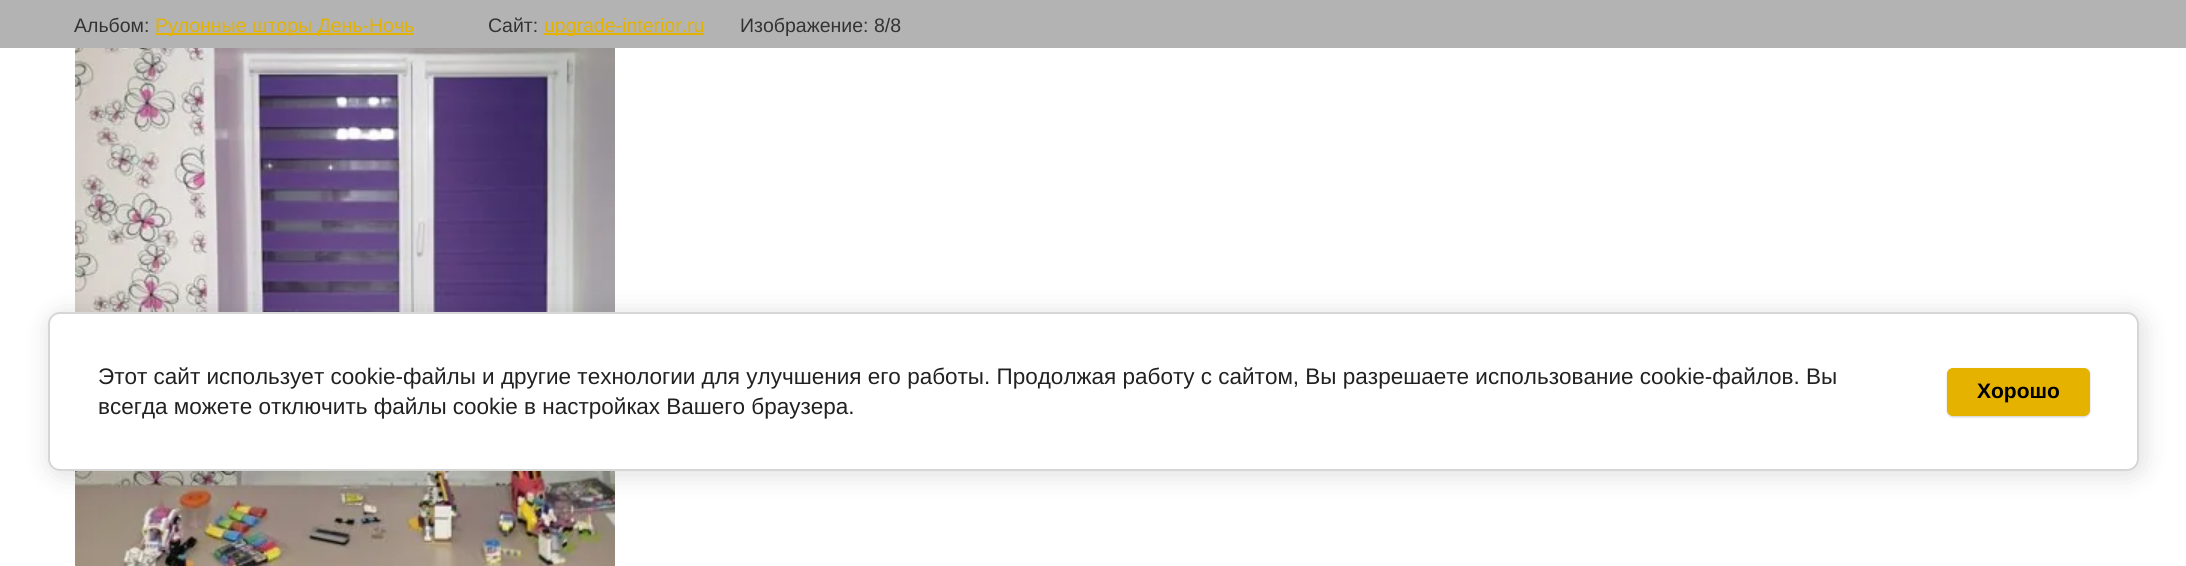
#include <cairo/cairo.h>
#include <math.h>
#include <stddef.h>

typedef struct { double x, y, w, h; unsigned color; } box_t;
static cairo_t *cr;

static void rgb(unsigned color)
{
	cairo_set_source_rgb(cr, (color >> 16) / 255.0, (color >> 8 & 255) / 255.0, (color & 255) / 255.0);
}

static void rrect(double x, double y, double w, double h, double r)
{
	cairo_new_sub_path(cr);
	cairo_arc(cr, x + w - r, y + h - r, r, 0, M_PI / 2);
	cairo_arc(cr, x + r, y + h - r, r, M_PI / 2, M_PI);
	cairo_arc(cr, x + r, y + r, r, M_PI, 1.5 * M_PI);
	cairo_arc(cr, x + w - r, y + r, r, 1.5 * M_PI, 2 * M_PI);
	cairo_close_path(cr);
}

static void soft_shadow(double x, double y, double w, double h, double r, double blur, double alpha)
{
	cairo_push_group_with_content(cr, CAIRO_CONTENT_ALPHA);
	cairo_set_operator(cr, CAIRO_OPERATOR_SOURCE);
	for (int i = 15; i >= -15 && fmin(w, h) + blur * i / 3 > 0; i -= 2) {
		double e = blur * i / 6;
		cairo_set_source_rgba(cr, 0, 0, 0, alpha * erfc((i - 1) / 8.5) / 2);
		rrect(x - e, y - e, w + 2 * e, h + 2 * e, fmax(0, fmin(r + e + blur * .6, fmin(w, h) / 2 + e)));
		cairo_fill(cr);
	}
	cairo_pattern_t *soft = cairo_pop_group(cr);
	cairo_mask(cr, soft);
	cairo_pattern_destroy(soft);
}

static void image(const char *path, double x, double y, double w, double h)
{
	cairo_surface_t *image = cairo_image_surface_create_from_png(path);
	cairo_save(cr);
	cairo_set_source_surface(cr, image, x, y);
	cairo_rectangle(cr, x, y, w, h);
	cairo_fill(cr);
	cairo_restore(cr);
	cairo_surface_destroy(image);
}

int main(void) {
	cairo_surface_t *surface = cairo_image_surface_create(CAIRO_FORMAT_RGB24, 2186, 566);
	cr = cairo_create(surface);
	cairo_font_options_t *options = cairo_font_options_create();
	cairo_font_options_set_hint_metrics(options, CAIRO_HINT_METRICS_OFF);
	cairo_font_options_set_hint_style(options, CAIRO_HINT_STYLE_NONE);
	cairo_set_font_options(cr, options);
	cairo_set_miter_limit(cr, 4);
	rgb(0xffffff);
	cairo_paint(cr);
	{
		static const box_t items[] = {
			{0, 0, 2186, 48, 0xb3b3b3},
			{155, 33, 259, 2, 0xe5b200},
			{543, 33, 161, 2, 0xe5b200},
		};
		for (size_t i = 0; i < sizeof items / sizeof *items; i++) {
			rgb(items[i].color);
			cairo_rectangle(cr, items[i].x, items[i].y, items[i].w, items[i].h);
			cairo_fill(cr);
		}
	}
	image("img/1.png", 75, 48, 540, 518);
	rgb(0x000000);
	soft_shadow(51, 315, 2091, 159, 12, 13.5, 0.14);
	rgb(0xffffff);
	rrect(49, 313, 2089, 157, 11);
	cairo_fill_preserve(cr);
	rgb(0xd6d6d6);
	cairo_stroke(cr);
	rgb(0x000000);
	soft_shadow(1947, 369, 143, 48, 6, 1, 0.2);
	rgb(0xe5b200);
	rrect(1948, 369, 141, 46, 5);
	cairo_fill_preserve(cr);
	cairo_stroke(cr);
	cairo_select_font_face(cr, "Liberation Sans", CAIRO_FONT_SLANT_NORMAL, CAIRO_FONT_WEIGHT_NORMAL);
	cairo_set_font_size(cr, 19.5);
	rgb(0x333333);
	cairo_move_to(cr, 74, 32);
	cairo_show_text(cr, "Альбом:");
	rgb(0xe5b200);
	cairo_move_to(cr, 155, 32);
	cairo_show_text(cr, "Рулонные шторы День-Ночь");
	rgb(0x333333);
	cairo_move_to(cr, 488, 32);
	cairo_show_text(cr, "Сайт:");
	rgb(0xe5b200);
	cairo_move_to(cr, 544, 32);
	cairo_show_text(cr, "upgrade-interior.ru");
	rgb(0x333333);
	cairo_move_to(cr, 740, 32);
	cairo_show_text(cr, "Изображение: 8/8");
	cairo_set_font_size(cr, 22.5);
	rgb(0x212121);
	cairo_move_to(cr, 98, 384);
	cairo_show_text(cr, "Этот сайт использует cookie-файлы и другие технологии для улучшения его работы. Продолжая работу с сайтом, Вы разрешаете использование cookie-файлов. Вы");
	cairo_move_to(cr, 98, 414);
	cairo_show_text(cr, "всегда можете отключить файлы cookie в настройках Вашего браузера.");
	cairo_select_font_face(cr, "Liberation Sans", CAIRO_FONT_SLANT_NORMAL, CAIRO_FONT_WEIGHT_BOLD);
	cairo_set_font_size(cr, 21);
	rgb(0x000000);
	cairo_move_to(cr, 1977, 398);
	cairo_show_text(cr, "Хорошо");
	cairo_surface_write_to_png(surface, "page.png");
	cairo_font_options_destroy(options);
	cairo_destroy(cr);
	cairo_surface_destroy(surface);
	return 0;
}
